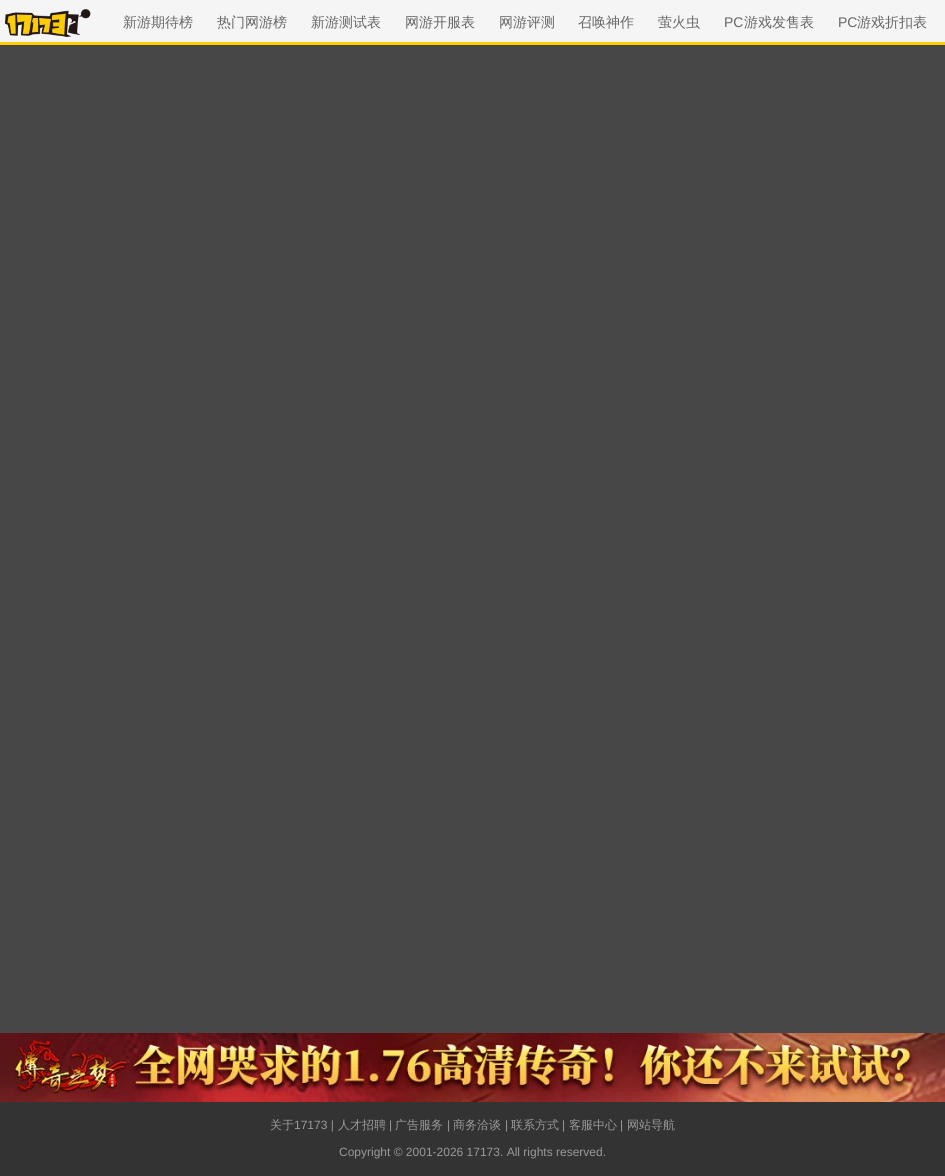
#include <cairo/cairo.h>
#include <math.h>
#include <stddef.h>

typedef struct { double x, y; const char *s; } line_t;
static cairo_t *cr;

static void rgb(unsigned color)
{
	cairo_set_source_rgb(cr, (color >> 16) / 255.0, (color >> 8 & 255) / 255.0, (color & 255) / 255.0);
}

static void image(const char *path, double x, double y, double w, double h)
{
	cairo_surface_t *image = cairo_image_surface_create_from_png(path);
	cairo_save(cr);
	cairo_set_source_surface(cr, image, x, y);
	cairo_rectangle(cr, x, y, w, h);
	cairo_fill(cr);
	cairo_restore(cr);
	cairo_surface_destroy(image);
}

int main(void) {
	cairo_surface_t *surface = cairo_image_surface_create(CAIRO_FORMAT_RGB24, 945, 1176);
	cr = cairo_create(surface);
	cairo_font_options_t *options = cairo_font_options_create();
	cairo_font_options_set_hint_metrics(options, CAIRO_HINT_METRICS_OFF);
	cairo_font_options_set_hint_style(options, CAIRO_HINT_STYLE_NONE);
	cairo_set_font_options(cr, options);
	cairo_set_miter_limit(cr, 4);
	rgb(0x474747);
	cairo_paint(cr);
	rgb(0xf5f5f5);
	cairo_rectangle(cr, 0, 0, 945, 42);
	cairo_fill(cr);
	rgb(0xffcd00);
	cairo_rectangle(cr, 0, 42, 945, 3);
	cairo_fill(cr);
	image("img/1.png", 5, 9, 86, 28);
	image("img/2.png", 0, 1033, 945, 69);
	rgb(0x333333);
	cairo_rectangle(cr, 0, 1102, 945, 74);
	cairo_fill(cr);
	cairo_select_font_face(cr, "WenQuanYi Zen Hei Medium", CAIRO_FONT_SLANT_NORMAL, CAIRO_FONT_WEIGHT_NORMAL);
	cairo_set_font_size(cr, 14);
	rgb(0x666666);
	{
		static const line_t items[] = {
			{123, 27, "新游期待榜"},
			{217, 27, "热门网游榜"},
			{311, 27, "新游测试表"},
			{405, 27, "网游开服表"},
			{499, 27, "网游评测"},
			{578, 27, "召唤神作"},
			{658, 27, "萤火虫"},
		};
		for (size_t i = 0; i < sizeof items / sizeof *items; i++) {
			cairo_move_to(cr, items[i].x, items[i].y);
			cairo_show_text(cr, items[i].s);
		}
	}
	cairo_select_font_face(cr, "Liberation Sans", CAIRO_FONT_SLANT_NORMAL, CAIRO_FONT_WEIGHT_NORMAL);
	cairo_move_to(cr, 724, 27);
	cairo_show_text(cr, "PC");
	cairo_select_font_face(cr, "WenQuanYi Zen Hei Medium", CAIRO_FONT_SLANT_NORMAL, CAIRO_FONT_WEIGHT_NORMAL);
	cairo_move_to(cr, 744, 27);
	cairo_show_text(cr, "游戏发售表");
	cairo_select_font_face(cr, "Liberation Sans", CAIRO_FONT_SLANT_NORMAL, CAIRO_FONT_WEIGHT_NORMAL);
	cairo_move_to(cr, 838, 27);
	cairo_show_text(cr, "PC");
	cairo_select_font_face(cr, "WenQuanYi Zen Hei Medium", CAIRO_FONT_SLANT_NORMAL, CAIRO_FONT_WEIGHT_NORMAL);
	cairo_move_to(cr, 857, 27);
	cairo_show_text(cr, "游戏折扣表");
	cairo_set_font_size(cr, 12);
	rgb(0x999999);
	cairo_move_to(cr, 270, 1129);
	cairo_show_text(cr, "关于");
	cairo_select_font_face(cr, "Liberation Sans", CAIRO_FONT_SLANT_NORMAL, CAIRO_FONT_WEIGHT_NORMAL);
	cairo_move_to(cr, 294, 1129);
	cairo_show_text(cr, "17173 |");
	cairo_select_font_face(cr, "WenQuanYi Zen Hei Medium", CAIRO_FONT_SLANT_NORMAL, CAIRO_FONT_WEIGHT_NORMAL);
	cairo_move_to(cr, 338, 1129);
	cairo_show_text(cr, "人才招聘");
	cairo_select_font_face(cr, "Liberation Sans", CAIRO_FONT_SLANT_NORMAL, CAIRO_FONT_WEIGHT_NORMAL);
	cairo_move_to(cr, 389, 1129);
	cairo_show_text(cr, "|");
	cairo_select_font_face(cr, "WenQuanYi Zen Hei Medium", CAIRO_FONT_SLANT_NORMAL, CAIRO_FONT_WEIGHT_NORMAL);
	cairo_move_to(cr, 395, 1129);
	cairo_show_text(cr, "广告服务");
	cairo_select_font_face(cr, "Liberation Sans", CAIRO_FONT_SLANT_NORMAL, CAIRO_FONT_WEIGHT_NORMAL);
	cairo_move_to(cr, 447, 1129);
	cairo_show_text(cr, "|");
	cairo_select_font_face(cr, "WenQuanYi Zen Hei Medium", CAIRO_FONT_SLANT_NORMAL, CAIRO_FONT_WEIGHT_NORMAL);
	cairo_move_to(cr, 453, 1129);
	cairo_show_text(cr, "商务洽谈");
	cairo_select_font_face(cr, "Liberation Sans", CAIRO_FONT_SLANT_NORMAL, CAIRO_FONT_WEIGHT_NORMAL);
	cairo_move_to(cr, 505, 1129);
	cairo_show_text(cr, "|");
	cairo_select_font_face(cr, "WenQuanYi Zen Hei Medium", CAIRO_FONT_SLANT_NORMAL, CAIRO_FONT_WEIGHT_NORMAL);
	cairo_move_to(cr, 511, 1129);
	cairo_show_text(cr, "联系方式");
	cairo_select_font_face(cr, "Liberation Sans", CAIRO_FONT_SLANT_NORMAL, CAIRO_FONT_WEIGHT_NORMAL);
	cairo_move_to(cr, 562, 1129);
	cairo_show_text(cr, "|");
	cairo_select_font_face(cr, "WenQuanYi Zen Hei Medium", CAIRO_FONT_SLANT_NORMAL, CAIRO_FONT_WEIGHT_NORMAL);
	cairo_move_to(cr, 569, 1129);
	cairo_show_text(cr, "客服中心");
	cairo_select_font_face(cr, "Liberation Sans", CAIRO_FONT_SLANT_NORMAL, CAIRO_FONT_WEIGHT_NORMAL);
	cairo_move_to(cr, 620, 1129);
	cairo_show_text(cr, "|");
	cairo_select_font_face(cr, "WenQuanYi Zen Hei Medium", CAIRO_FONT_SLANT_NORMAL, CAIRO_FONT_WEIGHT_NORMAL);
	cairo_move_to(cr, 627, 1129);
	cairo_show_text(cr, "网站导航");
	cairo_select_font_face(cr, "Liberation Sans", CAIRO_FONT_SLANT_NORMAL, CAIRO_FONT_WEIGHT_NORMAL);
	cairo_move_to(cr, 339, 1156);
	cairo_show_text(cr, "Copyright © 2001-2026 17173. All rights reserved.");
	cairo_surface_write_to_png(surface, "page.png");
	cairo_font_options_destroy(options);
	cairo_destroy(cr);
	cairo_surface_destroy(surface);
	return 0;
}
